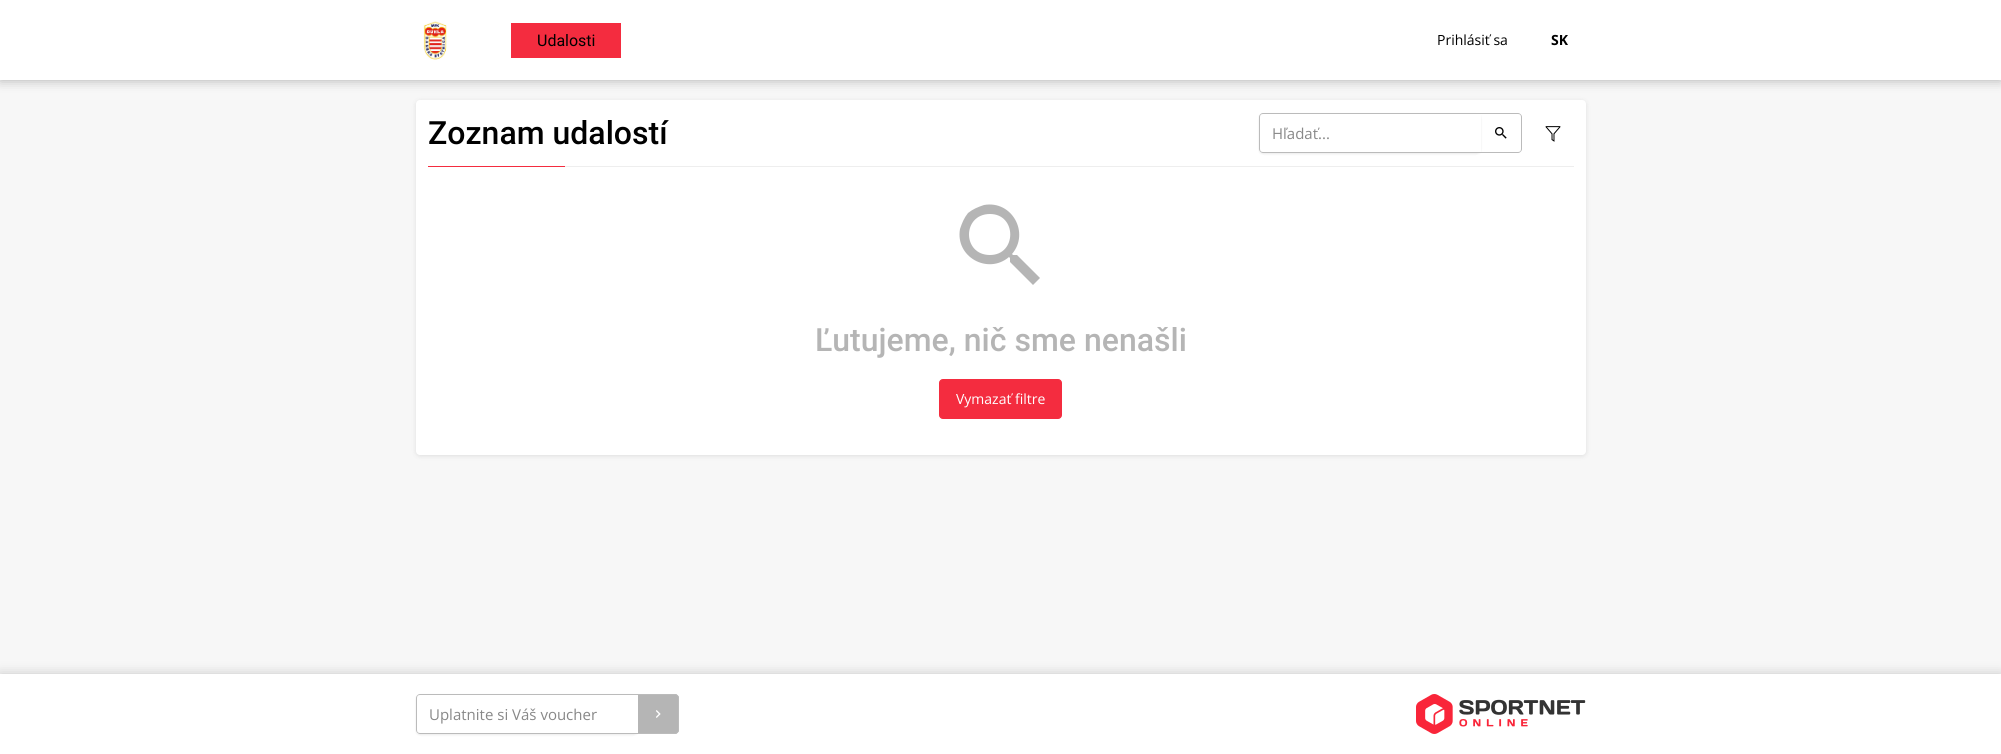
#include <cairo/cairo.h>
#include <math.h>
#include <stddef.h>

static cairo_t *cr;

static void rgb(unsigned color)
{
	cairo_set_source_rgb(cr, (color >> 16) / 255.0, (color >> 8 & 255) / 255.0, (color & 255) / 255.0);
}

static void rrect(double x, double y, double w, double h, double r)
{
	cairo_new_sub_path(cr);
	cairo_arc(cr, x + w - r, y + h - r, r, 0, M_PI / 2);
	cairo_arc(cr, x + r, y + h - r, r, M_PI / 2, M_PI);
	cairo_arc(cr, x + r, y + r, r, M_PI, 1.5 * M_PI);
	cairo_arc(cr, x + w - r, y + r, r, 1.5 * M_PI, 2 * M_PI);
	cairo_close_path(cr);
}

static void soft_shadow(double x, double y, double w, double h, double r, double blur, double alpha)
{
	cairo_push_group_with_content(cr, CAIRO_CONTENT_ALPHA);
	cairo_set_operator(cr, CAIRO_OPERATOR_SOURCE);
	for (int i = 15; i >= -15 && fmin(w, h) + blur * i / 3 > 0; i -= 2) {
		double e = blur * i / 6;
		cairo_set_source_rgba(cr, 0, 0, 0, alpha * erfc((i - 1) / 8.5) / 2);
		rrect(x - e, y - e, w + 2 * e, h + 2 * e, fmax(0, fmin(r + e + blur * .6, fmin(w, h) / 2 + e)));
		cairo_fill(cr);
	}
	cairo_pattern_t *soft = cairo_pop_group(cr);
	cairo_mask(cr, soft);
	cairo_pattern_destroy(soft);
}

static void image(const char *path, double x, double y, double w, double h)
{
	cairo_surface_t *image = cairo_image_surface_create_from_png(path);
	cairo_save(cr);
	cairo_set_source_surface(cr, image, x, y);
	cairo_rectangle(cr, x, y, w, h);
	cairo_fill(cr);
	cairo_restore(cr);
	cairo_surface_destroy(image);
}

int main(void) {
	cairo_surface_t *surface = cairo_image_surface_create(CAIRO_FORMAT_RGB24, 2001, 754);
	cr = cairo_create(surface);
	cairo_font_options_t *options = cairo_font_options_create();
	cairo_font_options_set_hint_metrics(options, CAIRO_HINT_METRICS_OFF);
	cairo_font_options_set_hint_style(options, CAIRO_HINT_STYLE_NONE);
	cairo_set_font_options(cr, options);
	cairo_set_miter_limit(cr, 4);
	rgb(0xf7f7f7);
	cairo_paint(cr);
	rgb(0x000000);
	soft_shadow(0, 0, 2001, 80, 0, 6, 0.3);
	rgb(0xffffff);
	cairo_rectangle(cr, 0, 0, 2001, 80);
	cairo_fill(cr);
	image("img/1.png", 423, 21, 24, 39);
	rgb(0xf42c3f);
	cairo_rectangle(cr, 511, 23, 110, 35);
	cairo_fill(cr);
	rgb(0x000000);
	soft_shadow(416, 101, 1170, 355, 4, 2.5, 0.1);
	rgb(0xffffff);
	rrect(416, 100, 1170, 355, 4);
	cairo_fill(cr);
	rgb(0x000000);
	soft_shadow(1259, 114, 222, 40, 4, 1, 0.08);
	rgb(0xffffff);
	cairo_new_path(cr);
	cairo_move_to(cr, 1263, 113);
	cairo_line_to(cr, 1481, 113);
	cairo_line_to(cr, 1481, 153);
	cairo_line_to(cr, 1263, 153);
	cairo_curve_to(cr, 1261, 153, 1259, 151, 1259, 149);
	cairo_line_to(cr, 1259, 117);
	cairo_curve_to(cr, 1259, 115, 1261, 113, 1263, 113);
	cairo_close_path(cr);
	cairo_fill(cr);
	rgb(0xbbbbbb);
	cairo_set_fill_rule(cr, CAIRO_FILL_RULE_EVEN_ODD);
	cairo_new_path(cr);
	cairo_move_to(cr, 1263, 113);
	cairo_line_to(cr, 1481, 113);
	cairo_line_to(cr, 1481, 153);
	cairo_line_to(cr, 1263, 153);
	cairo_curve_to(cr, 1261, 153, 1259, 151, 1259, 149);
	cairo_line_to(cr, 1259, 117);
	cairo_curve_to(cr, 1259, 115, 1261, 113, 1263, 113);
	cairo_close_path(cr);
	cairo_move_to(cr, 1263, 114);
	cairo_line_to(cr, 1481, 114);
	cairo_line_to(cr, 1481, 152);
	cairo_line_to(cr, 1263, 152);
	cairo_curve_to(cr, 1261, 152, 1260, 151, 1260, 149);
	cairo_line_to(cr, 1260, 117);
	cairo_curve_to(cr, 1260, 115, 1261, 114, 1263, 114);
	cairo_close_path(cr);
	cairo_fill(cr);
	cairo_new_path(cr);
	cairo_move_to(cr, 1481, 113);
	cairo_line_to(cr, 1518, 113);
	cairo_curve_to(cr, 1520, 113, 1522, 115, 1522, 117);
	cairo_line_to(cr, 1522, 149);
	cairo_curve_to(cr, 1522, 151, 1520, 153, 1518, 153);
	cairo_line_to(cr, 1481, 153);
	cairo_close_path(cr);
	cairo_move_to(cr, 1481, 114);
	cairo_line_to(cr, 1518, 114);
	cairo_curve_to(cr, 1520, 114, 1521, 115, 1521, 117);
	cairo_line_to(cr, 1521, 149);
	cairo_curve_to(cr, 1521, 151, 1520, 152, 1518, 152);
	cairo_line_to(cr, 1481, 152);
	cairo_close_path(cr);
	cairo_fill(cr);
	image("img/2.png", 1495, 127, 12, 12);
	image("img/3.png", 1545, 126, 16, 16);
	rgb(0xf42c3f);
	cairo_rectangle(cr, 428, 166, 137, 1);
	cairo_fill(cr);
	rgb(0xeeeeee);
	cairo_rectangle(cr, 565, 166, 1009, 1);
	cairo_fill(cr);
	rgb(0xb5b5b5);
	cairo_set_fill_rule(cr, CAIRO_FILL_RULE_WINDING);
	cairo_new_path(cr);
	cairo_move_to(cr, 1017, 255);
	cairo_line_to(cr, 1013, 255);
	cairo_line_to(cr, 1012, 254);
	cairo_curve_to(cr, 1030, 233, 1012, 200, 984, 205);
	cairo_curve_to(cr, 978, 207, 973, 209, 968, 213);
	cairo_curve_to(cr, 964, 218, 962, 223, 960, 229);
	cairo_curve_to(cr, 955, 257, 988, 275, 1009, 257);
	cairo_line_to(cr, 1010, 258);
	cairo_line_to(cr, 1010, 262);
	cairo_line_to(cr, 1033, 285);
	cairo_line_to(cr, 1040, 278);
	cairo_close_path(cr);
	cairo_move_to(cr, 990, 255);
	cairo_curve_to(cr, 962, 255, 962, 214, 990, 214);
	cairo_curve_to(cr, 1017, 214, 1017, 255, 990, 255);
	cairo_close_path(cr);
	cairo_fill(cr);
	rgb(0xf42c3f);
	rrect(939.5, 379.5, 122, 39, 3.5);
	cairo_fill_preserve(cr);
	cairo_set_line_width(cr, 1);
	cairo_stroke(cr);
	rgb(0x000000);
	soft_shadow(0, 674, 2001, 80, 0, 6, 0.2);
	rgb(0xffffff);
	cairo_rectangle(cr, 0, 674, 2001, 80);
	cairo_fill(cr);
	rgb(0x000000);
	soft_shadow(416, 695, 222, 40, 4, 1, 0.08);
	rgb(0xffffff);
	cairo_new_path(cr);
	cairo_move_to(cr, 420, 694);
	cairo_line_to(cr, 638, 694);
	cairo_line_to(cr, 638, 734);
	cairo_line_to(cr, 420, 734);
	cairo_curve_to(cr, 418, 734, 416, 732, 416, 730);
	cairo_line_to(cr, 416, 698);
	cairo_curve_to(cr, 416, 696, 418, 694, 420, 694);
	cairo_close_path(cr);
	cairo_fill(cr);
	rgb(0xbbbbbb);
	cairo_set_fill_rule(cr, CAIRO_FILL_RULE_EVEN_ODD);
	cairo_new_path(cr);
	cairo_move_to(cr, 420, 694);
	cairo_line_to(cr, 638, 694);
	cairo_line_to(cr, 638, 734);
	cairo_line_to(cr, 420, 734);
	cairo_curve_to(cr, 418, 734, 416, 732, 416, 730);
	cairo_line_to(cr, 416, 698);
	cairo_curve_to(cr, 416, 696, 418, 694, 420, 694);
	cairo_close_path(cr);
	cairo_move_to(cr, 420, 695);
	cairo_line_to(cr, 638, 695);
	cairo_line_to(cr, 638, 733);
	cairo_line_to(cr, 420, 733);
	cairo_curve_to(cr, 418, 733, 417, 732, 417, 730);
	cairo_line_to(cr, 417, 698);
	cairo_curve_to(cr, 417, 696, 418, 695, 420, 695);
	cairo_close_path(cr);
	cairo_fill(cr);
	rgb(0xb5b5b5);
	cairo_new_path(cr);
	cairo_move_to(cr, 638, 694);
	cairo_line_to(cr, 675, 694);
	cairo_curve_to(cr, 677, 694, 679, 696, 679, 698);
	cairo_line_to(cr, 679, 730);
	cairo_curve_to(cr, 679, 732, 677, 734, 675, 734);
	cairo_line_to(cr, 638, 734);
	cairo_close_path(cr);
	cairo_fill(cr);
	rgb(0xbbbbbb);
	cairo_new_path(cr);
	cairo_move_to(cr, 638, 694);
	cairo_line_to(cr, 675, 694);
	cairo_curve_to(cr, 677, 694, 679, 696, 679, 698);
	cairo_line_to(cr, 679, 730);
	cairo_curve_to(cr, 679, 732, 677, 734, 675, 734);
	cairo_line_to(cr, 638, 734);
	cairo_close_path(cr);
	cairo_move_to(cr, 638, 695);
	cairo_line_to(cr, 675, 695);
	cairo_curve_to(cr, 677, 695, 678, 696, 678, 698);
	cairo_line_to(cr, 678, 730);
	cairo_curve_to(cr, 678, 732, 677, 733, 675, 733);
	cairo_line_to(cr, 638, 733);
	cairo_close_path(cr);
	cairo_fill(cr);
	image("img/4.png", 656, 710, 5, 8);
	image("img/5.png", 1416, 694, 170, 40);
	cairo_select_font_face(cr, "Roboto", CAIRO_FONT_SLANT_NORMAL, CAIRO_FONT_WEIGHT_NORMAL);
	cairo_set_font_size(cr, 16);
	rgb(0x000000);
	cairo_move_to(cr, 537, 46);
	cairo_show_text(cr, "Udalosti");
	cairo_select_font_face(cr, "Open Sans", CAIRO_FONT_SLANT_NORMAL, CAIRO_FONT_WEIGHT_NORMAL);
	cairo_set_font_size(cr, 14);
	cairo_move_to(cr, 1437, 45);
	cairo_show_text(cr, "Prihlásiť sa");
	cairo_select_font_face(cr, "Open Sans", CAIRO_FONT_SLANT_NORMAL, CAIRO_FONT_WEIGHT_BOLD);
	cairo_move_to(cr, 1551, 45);
	cairo_show_text(cr, "SK");
	cairo_select_font_face(cr, "Roboto Medium", CAIRO_FONT_SLANT_NORMAL, CAIRO_FONT_WEIGHT_NORMAL);
	cairo_set_font_size(cr, 32);
	cairo_move_to(cr, 428, 144);
	cairo_show_text(cr, "Zoznam udalostí");
	cairo_select_font_face(cr, "Open Sans", CAIRO_FONT_SLANT_NORMAL, CAIRO_FONT_WEIGHT_NORMAL);
	cairo_set_font_size(cr, 15);
	rgb(0x888888);
	cairo_move_to(cr, 1272, 139);
	cairo_show_text(cr, "Hľadať...");
	cairo_select_font_face(cr, "Roboto Medium", CAIRO_FONT_SLANT_NORMAL, CAIRO_FONT_WEIGHT_NORMAL);
	cairo_set_font_size(cr, 32);
	rgb(0xb5b5b5);
	cairo_move_to(cr, 815, 351);
	cairo_show_text(cr, "Ľutujeme, nič sme nenašli");
	cairo_select_font_face(cr, "Open Sans", CAIRO_FONT_SLANT_NORMAL, CAIRO_FONT_WEIGHT_NORMAL);
	cairo_set_font_size(cr, 14);
	rgb(0xffffff);
	cairo_move_to(cr, 956, 404);
	cairo_show_text(cr, "Vymazať filtre");
	cairo_set_font_size(cr, 15);
	rgb(0x888888);
	cairo_move_to(cr, 429, 720);
	cairo_show_text(cr, "Uplatnite si Váš voucher");
	cairo_surface_write_to_png(surface, "page.png");
	cairo_font_options_destroy(options);
	cairo_destroy(cr);
	cairo_surface_destroy(surface);
	return 0;
}
